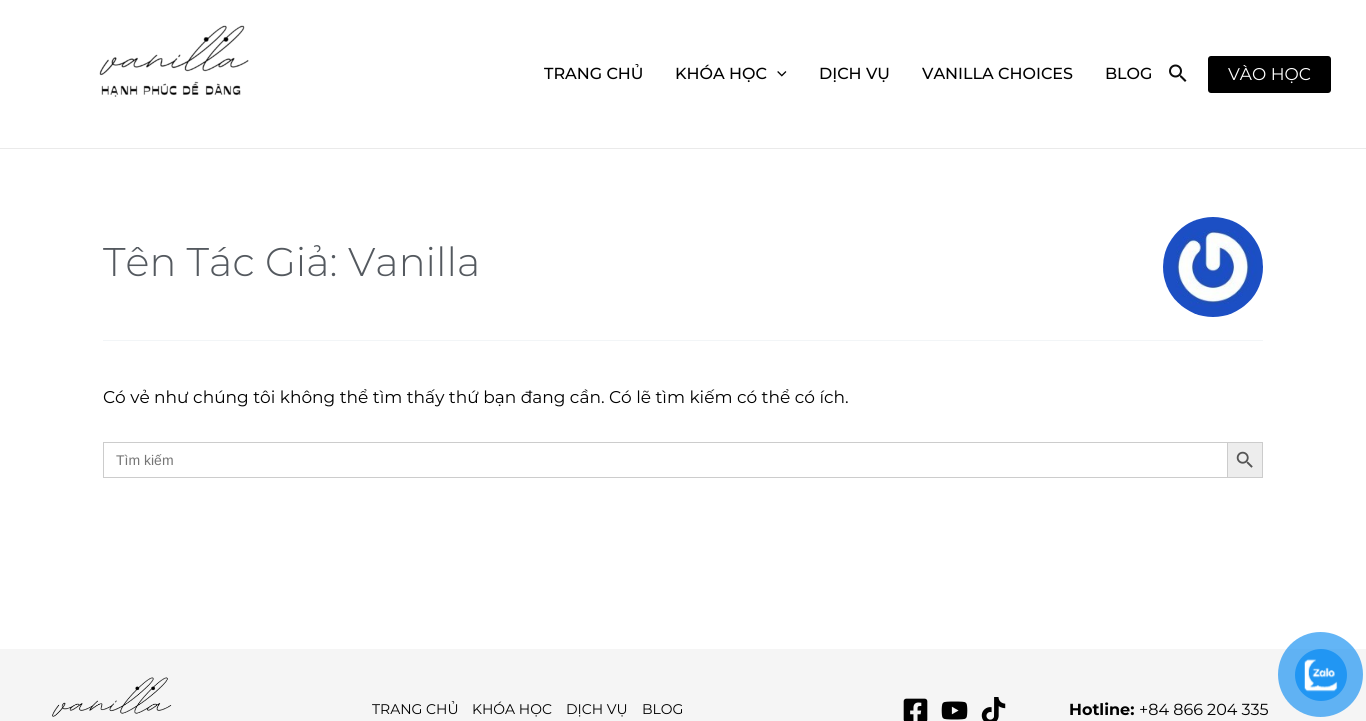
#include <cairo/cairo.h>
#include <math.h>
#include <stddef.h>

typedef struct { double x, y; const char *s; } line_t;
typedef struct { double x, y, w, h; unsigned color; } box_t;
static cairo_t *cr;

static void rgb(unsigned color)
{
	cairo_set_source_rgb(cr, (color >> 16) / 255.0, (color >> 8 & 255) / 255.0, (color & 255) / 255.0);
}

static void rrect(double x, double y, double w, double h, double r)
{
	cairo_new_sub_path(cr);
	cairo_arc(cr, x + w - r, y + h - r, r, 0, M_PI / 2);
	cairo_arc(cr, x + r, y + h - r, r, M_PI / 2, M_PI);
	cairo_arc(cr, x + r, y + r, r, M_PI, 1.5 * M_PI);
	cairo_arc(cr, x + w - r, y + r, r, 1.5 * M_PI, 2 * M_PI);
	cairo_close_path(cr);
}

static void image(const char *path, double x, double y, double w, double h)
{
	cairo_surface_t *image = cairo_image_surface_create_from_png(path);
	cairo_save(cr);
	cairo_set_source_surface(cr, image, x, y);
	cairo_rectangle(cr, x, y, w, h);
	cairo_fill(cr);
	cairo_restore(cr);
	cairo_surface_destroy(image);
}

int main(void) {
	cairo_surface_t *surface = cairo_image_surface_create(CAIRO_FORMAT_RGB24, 1366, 721);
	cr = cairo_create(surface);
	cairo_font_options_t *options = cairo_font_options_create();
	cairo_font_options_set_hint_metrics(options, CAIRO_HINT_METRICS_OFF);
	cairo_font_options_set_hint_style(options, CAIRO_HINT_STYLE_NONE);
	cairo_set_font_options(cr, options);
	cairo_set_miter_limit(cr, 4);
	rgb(0xffffff);
	cairo_paint(cr);
	rgb(0xeaeaea);
	cairo_rectangle(cr, 0, 148, 1366, 1);
	cairo_fill(cr);
	image("img/1.png", 99, 25, 150, 72);
	image("img/2.png", 777, 71, 10, 6);
	image("img/3.png", 1169, 64, 18, 18);
	rgb(0x000000);
	rrect(1208, 56, 123, 37, 3);
	cairo_fill(cr);
	rgb(0xf2f5f7);
	cairo_rectangle(cr, 103, 340, 1160, 1);
	cairo_fill(cr);
	image("img/4.png", 1163, 217, 100, 100);
	{
		static const box_t items[] = {
			{103, 442, 1124, 1, 0xcccccc},
			{103, 477, 1124, 1, 0xcccccc},
			{103, 442, 1, 36, 0xcccccc},
		};
		for (size_t i = 0; i < sizeof items / sizeof *items; i++) {
			rgb(items[i].color);
			cairo_rectangle(cr, items[i].x, items[i].y, items[i].w, items[i].h);
			cairo_fill(cr);
		}
	}
	rgb(0xededed);
	cairo_rectangle(cr, 1227.5, 442.5, 35, 35);
	cairo_fill_preserve(cr);
	rgb(0xcccccc);
	cairo_set_line_width(cr, 1);
	cairo_stroke(cr);
	image("img/5.png", 1236, 451, 17, 17);
	rgb(0xf5f5f5);
	cairo_rectangle(cr, 0, 649, 1366, 72);
	cairo_fill(cr);
	image("img/6.png", 52, 677, 120, 40);
	image("img/7.png", 903, 698, 25, 23);
	image("img/8.png", 941, 701, 27, 19);
	image("img/9.png", 981, 697, 25, 24);
	cairo_set_source_rgba(cr, 0.129, 0.588, 0.953, 0.7);
	cairo_arc(cr, 1320.5, 674.5, 42.5, 0, 2 * M_PI);
	cairo_fill(cr);
	rgb(0x2196f3);
	cairo_arc(cr, 1321, 675, 26, 0, 2 * M_PI);
	cairo_fill(cr);
	image("img/10.png", 1304, 659, 34, 33);
	cairo_select_font_face(cr, "Montserrat Medium", CAIRO_FONT_SLANT_NORMAL, CAIRO_FONT_WEIGHT_NORMAL);
	cairo_set_font_size(cr, 16);
	rgb(0x000000);
	{
		static const line_t items[] = {
			{544, 79, "TRANG CHỦ"},
			{675, 79, "KHÓA HỌC"},
			{819, 79, "DỊCH VỤ"},
			{922, 79, "VANILLA CHOICES"},
			{1105, 79, "BLOG"},
		};
		for (size_t i = 0; i < sizeof items / sizeof *items; i++) {
			cairo_move_to(cr, items[i].x, items[i].y);
			cairo_show_text(cr, items[i].s);
		}
	}
	cairo_select_font_face(cr, "Montserrat", CAIRO_FONT_SLANT_NORMAL, CAIRO_FONT_WEIGHT_NORMAL);
	cairo_set_font_size(cr, 17);
	rgb(0xffffff);
	cairo_move_to(cr, 1228, 80);
	cairo_show_text(cr, "VÀO HỌC");
	cairo_select_font_face(cr, "Montserrat Light", CAIRO_FONT_SLANT_NORMAL, CAIRO_FONT_WEIGHT_NORMAL);
	cairo_set_font_size(cr, 40);
	rgb(0x54595f);
	cairo_move_to(cr, 103, 276);
	cairo_show_text(cr, "Tên Tác Giả: Vanilla");
	cairo_select_font_face(cr, "Montserrat", CAIRO_FONT_SLANT_NORMAL, CAIRO_FONT_WEIGHT_NORMAL);
	cairo_set_font_size(cr, 17);
	rgb(0x000000);
	cairo_move_to(cr, 103, 403);
	cairo_show_text(cr, "Có vẻ như chúng tôi không thể tìm thấy thứ bạn đang cần. Có lẽ tìm kiếm có thể có ích.");
	cairo_select_font_face(cr, "Liberation Sans", CAIRO_FONT_SLANT_NORMAL, CAIRO_FONT_WEIGHT_NORMAL);
	cairo_set_font_size(cr, 14);
	rgb(0x757575);
	cairo_move_to(cr, 116, 465);
	cairo_show_text(cr, "Tìm kiếm");
	cairo_select_font_face(cr, "Montserrat", CAIRO_FONT_SLANT_NORMAL, CAIRO_FONT_WEIGHT_NORMAL);
	rgb(0x000000);
	{
		static const line_t items[] = {
			{372, 714, "TRANG CHỦ"},
			{472, 714, "KHÓA HỌC"},
			{566, 714, "DỊCH VỤ"},
			{642, 714, "BLOG"},
		};
		for (size_t i = 0; i < sizeof items / sizeof *items; i++) {
			cairo_move_to(cr, items[i].x, items[i].y);
			cairo_show_text(cr, items[i].s);
		}
	}
	cairo_select_font_face(cr, "Montserrat", CAIRO_FONT_SLANT_NORMAL, CAIRO_FONT_WEIGHT_BOLD);
	cairo_set_font_size(cr, 16);
	cairo_move_to(cr, 1069, 715);
	cairo_show_text(cr, "Hotline:");
	cairo_select_font_face(cr, "Montserrat", CAIRO_FONT_SLANT_NORMAL, CAIRO_FONT_WEIGHT_NORMAL);
	cairo_move_to(cr, 1139, 715);
	cairo_show_text(cr, "+84 866 204 335");
	cairo_surface_write_to_png(surface, "page.png");
	cairo_font_options_destroy(options);
	cairo_destroy(cr);
	cairo_surface_destroy(surface);
	return 0;
}
